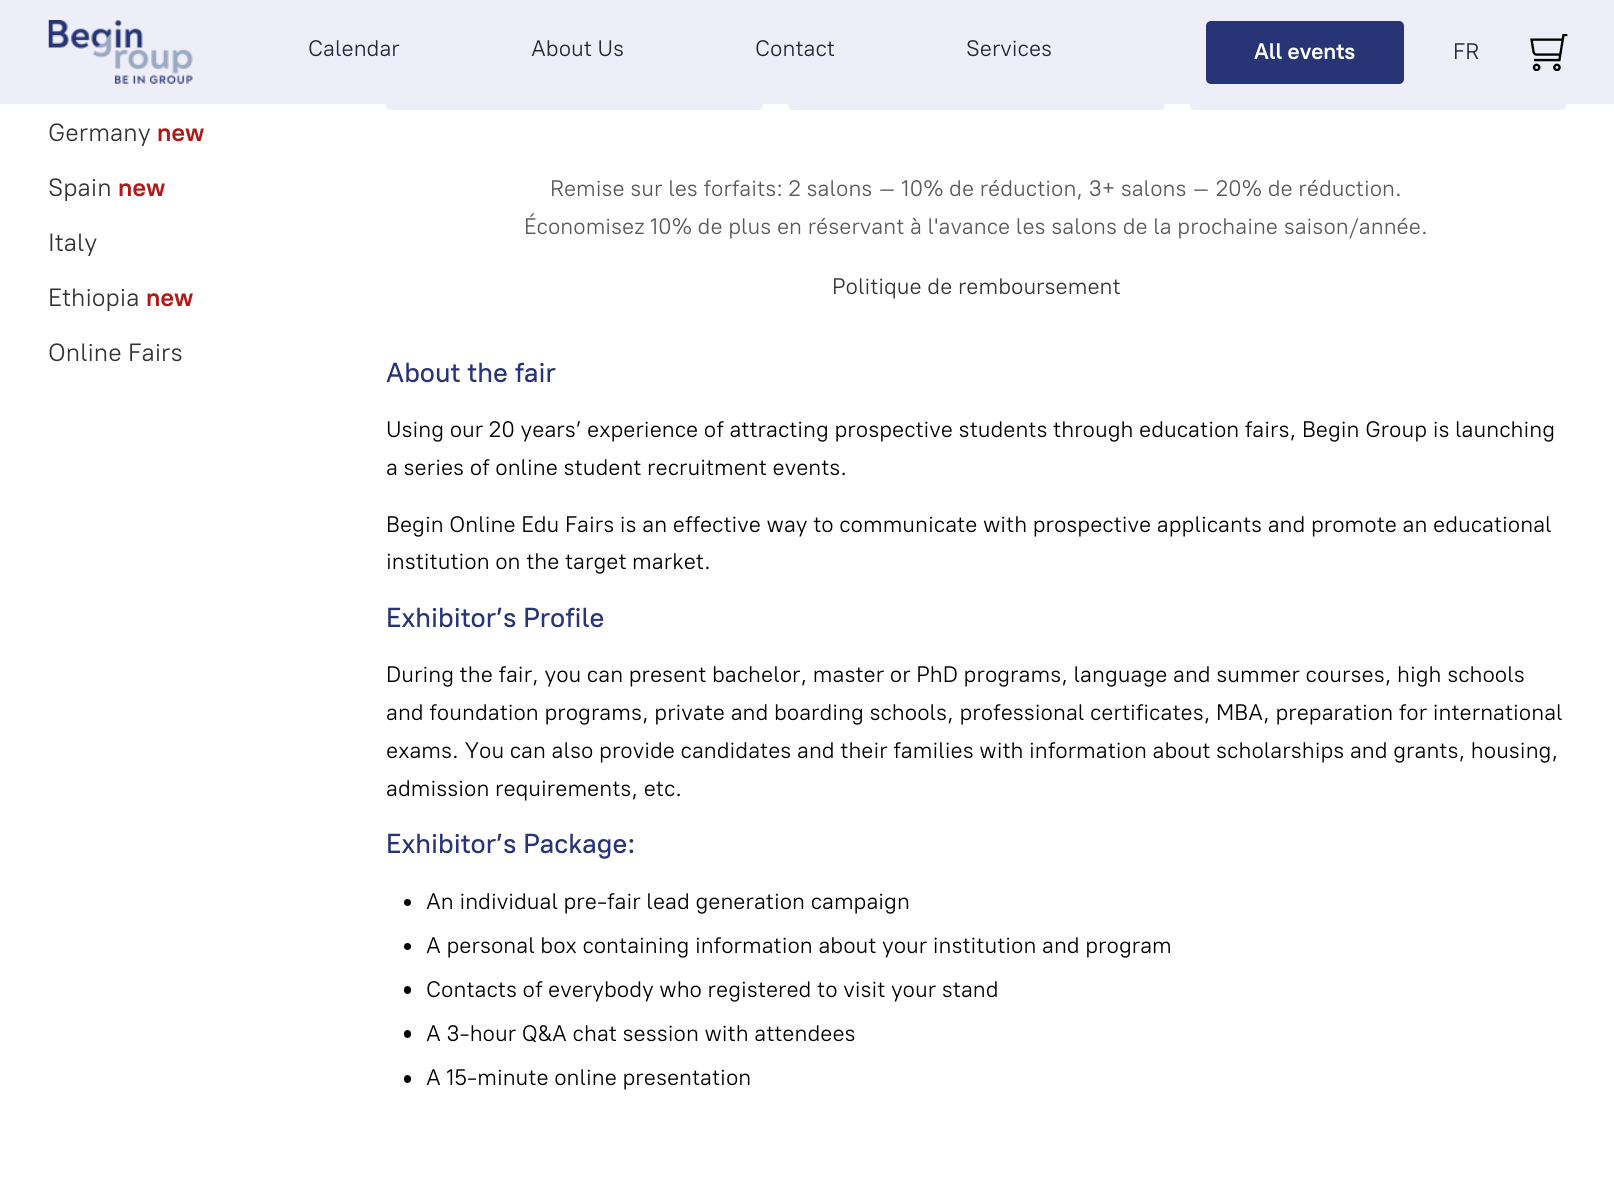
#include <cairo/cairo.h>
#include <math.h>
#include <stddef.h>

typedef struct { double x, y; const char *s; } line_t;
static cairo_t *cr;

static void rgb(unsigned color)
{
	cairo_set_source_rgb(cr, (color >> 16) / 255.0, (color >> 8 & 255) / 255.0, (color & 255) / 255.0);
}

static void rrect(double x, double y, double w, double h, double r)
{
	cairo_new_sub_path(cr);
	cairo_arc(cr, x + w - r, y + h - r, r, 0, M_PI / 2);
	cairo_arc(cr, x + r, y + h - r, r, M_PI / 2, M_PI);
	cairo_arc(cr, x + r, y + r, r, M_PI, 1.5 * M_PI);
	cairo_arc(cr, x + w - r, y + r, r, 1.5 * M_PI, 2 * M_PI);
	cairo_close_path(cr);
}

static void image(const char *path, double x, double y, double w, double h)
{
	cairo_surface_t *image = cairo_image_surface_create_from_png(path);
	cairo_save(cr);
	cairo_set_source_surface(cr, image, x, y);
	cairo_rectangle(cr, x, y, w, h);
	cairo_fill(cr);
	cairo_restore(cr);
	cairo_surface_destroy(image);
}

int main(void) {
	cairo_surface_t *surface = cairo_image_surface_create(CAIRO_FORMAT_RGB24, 1614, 1178);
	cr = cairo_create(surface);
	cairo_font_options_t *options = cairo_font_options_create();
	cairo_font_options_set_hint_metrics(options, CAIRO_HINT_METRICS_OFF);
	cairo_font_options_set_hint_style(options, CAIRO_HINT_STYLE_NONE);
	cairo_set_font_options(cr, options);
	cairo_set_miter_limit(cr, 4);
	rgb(0xffffff);
	cairo_paint(cr);
	rgb(0xedeef7);
	cairo_new_path(cr);
	cairo_move_to(cr, 386, 40);
	cairo_line_to(cr, 763, 40);
	cairo_line_to(cr, 763, 105);
	cairo_curve_to(cr, 763, 108, 761, 110, 758, 110);
	cairo_line_to(cr, 391, 110);
	cairo_curve_to(cr, 388, 110, 386, 108, 386, 105);
	cairo_close_path(cr);
	cairo_fill(cr);
	cairo_new_path(cr);
	cairo_move_to(cr, 788, 40);
	cairo_line_to(cr, 1165, 40);
	cairo_line_to(cr, 1165, 105);
	cairo_curve_to(cr, 1165, 108, 1163, 110, 1160, 110);
	cairo_line_to(cr, 793, 110);
	cairo_curve_to(cr, 790, 110, 788, 108, 788, 105);
	cairo_close_path(cr);
	cairo_fill(cr);
	cairo_new_path(cr);
	cairo_move_to(cr, 1190, 40);
	cairo_line_to(cr, 1566, 40);
	cairo_line_to(cr, 1566, 105);
	cairo_curve_to(cr, 1566, 108, 1564, 110, 1561, 110);
	cairo_line_to(cr, 1195, 110);
	cairo_curve_to(cr, 1192, 110, 1190, 108, 1190, 105);
	cairo_close_path(cr);
	cairo_fill(cr);
	cairo_rectangle(cr, 0, 0, 1614, 104);
	cairo_fill(cr);
	image("img/1.png", 48, 20, 145, 64);
	rgb(0x273476);
	rrect(1206, 21, 198, 63, 5);
	cairo_fill(cr);
	image("img/2.png", 1530, 34, 38, 37);
	rgb(0x000000);
	cairo_arc(cr, 407.5, 902.5, 3.5, 0, 2 * M_PI);
	cairo_fill(cr);
	cairo_arc(cr, 407.5, 946.5, 3.5, 0, 2 * M_PI);
	cairo_fill(cr);
	rrect(404, 986, 7, 8, 3.5);
	cairo_fill(cr);
	rrect(404, 1030, 7, 8, 3.5);
	cairo_fill(cr);
	rrect(404, 1075, 7, 8, 3.5);
	cairo_fill(cr);
	cairo_select_font_face(cr, "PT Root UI", CAIRO_FONT_SLANT_NORMAL, CAIRO_FONT_WEIGHT_NORMAL);
	cairo_set_font_size(cr, 22.5);
	rgb(0x232637);
	{
		static const line_t items[] = {
			{308, 56, "Calendar"},
			{531, 56, "About Us"},
			{755, 56, "Contact"},
			{966, 56, "Services"},
		};
		for (size_t i = 0; i < sizeof items / sizeof *items; i++) {
			cairo_move_to(cr, items[i].x, items[i].y);
			cairo_show_text(cr, items[i].s);
		}
	}
	cairo_select_font_face(cr, "PT Root UI", CAIRO_FONT_SLANT_NORMAL, CAIRO_FONT_WEIGHT_BOLD);
	rgb(0xffffff);
	cairo_move_to(cr, 1254, 59);
	cairo_show_text(cr, "All events");
	cairo_select_font_face(cr, "PT Root UI", CAIRO_FONT_SLANT_NORMAL, CAIRO_FONT_WEIGHT_NORMAL);
	rgb(0x232637);
	cairo_move_to(cr, 1453, 59);
	cairo_show_text(cr, "FR");
	cairo_set_font_size(cr, 25);
	rgb(0x333333);
	cairo_move_to(cr, 48, 141);
	cairo_show_text(cr, "Germany");
	cairo_select_font_face(cr, "PT Root UI", CAIRO_FONT_SLANT_NORMAL, CAIRO_FONT_WEIGHT_BOLD);
	rgb(0xaf1917);
	cairo_move_to(cr, 157, 141);
	cairo_show_text(cr, "new");
	cairo_select_font_face(cr, "PT Root UI", CAIRO_FONT_SLANT_NORMAL, CAIRO_FONT_WEIGHT_NORMAL);
	rgb(0x333333);
	cairo_move_to(cr, 48, 196);
	cairo_show_text(cr, "Spain");
	cairo_select_font_face(cr, "PT Root UI", CAIRO_FONT_SLANT_NORMAL, CAIRO_FONT_WEIGHT_BOLD);
	rgb(0xaf1917);
	cairo_move_to(cr, 118, 196);
	cairo_show_text(cr, "new");
	cairo_select_font_face(cr, "PT Root UI", CAIRO_FONT_SLANT_NORMAL, CAIRO_FONT_WEIGHT_NORMAL);
	rgb(0x333333);
	cairo_move_to(cr, 48, 251);
	cairo_show_text(cr, "Italy");
	cairo_move_to(cr, 48, 306);
	cairo_show_text(cr, "Ethiopia");
	cairo_select_font_face(cr, "PT Root UI", CAIRO_FONT_SLANT_NORMAL, CAIRO_FONT_WEIGHT_BOLD);
	rgb(0xaf1917);
	cairo_move_to(cr, 146, 306);
	cairo_show_text(cr, "new");
	cairo_select_font_face(cr, "PT Root UI", CAIRO_FONT_SLANT_NORMAL, CAIRO_FONT_WEIGHT_NORMAL);
	rgb(0x333333);
	cairo_move_to(cr, 48, 361);
	cairo_show_text(cr, "Online Fairs");
	cairo_set_font_size(cr, 22.5);
	rgb(0x58595b);
	cairo_move_to(cr, 550, 196);
	cairo_show_text(cr, "Remise sur les forfaits: 2 salons – 10% de réduction, 3+ salons – 20% de réduction.");
	cairo_move_to(cr, 524, 234);
	cairo_show_text(cr, "Économisez 10% de plus en réservant à l'avance les salons de la prochaine saison/année.");
	rgb(0x333333);
	cairo_move_to(cr, 832, 294);
	cairo_show_text(cr, "Politique de remboursement");
	cairo_select_font_face(cr, "PT Root UI Medium", CAIRO_FONT_SLANT_NORMAL, CAIRO_FONT_WEIGHT_NORMAL);
	cairo_set_font_size(cr, 27.5);
	rgb(0x273476);
	cairo_move_to(cr, 386, 382);
	cairo_show_text(cr, "About the fair");
	cairo_select_font_face(cr, "PT Root UI", CAIRO_FONT_SLANT_NORMAL, CAIRO_FONT_WEIGHT_NORMAL);
	cairo_set_font_size(cr, 22.5);
	rgb(0x000000);
	{
		static const line_t items[] = {
			{386, 437, "Using our 20 years’ experience of attracting prospective students through education fairs, Begin Group is launching"},
			{386, 475, "a series of online student recruitment events."},
			{386, 532, "Begin Online Edu Fairs is an effective way to communicate with prospective applicants and promote an educational"},
			{386, 569, "institution on the target market."},
		};
		for (size_t i = 0; i < sizeof items / sizeof *items; i++) {
			cairo_move_to(cr, items[i].x, items[i].y);
			cairo_show_text(cr, items[i].s);
		}
	}
	cairo_select_font_face(cr, "PT Root UI Medium", CAIRO_FONT_SLANT_NORMAL, CAIRO_FONT_WEIGHT_NORMAL);
	cairo_set_font_size(cr, 27.5);
	rgb(0x273476);
	cairo_move_to(cr, 386, 627);
	cairo_show_text(cr, "Exhibitor’s Profile");
	cairo_select_font_face(cr, "PT Root UI", CAIRO_FONT_SLANT_NORMAL, CAIRO_FONT_WEIGHT_NORMAL);
	cairo_set_font_size(cr, 22.5);
	rgb(0x000000);
	{
		static const line_t items[] = {
			{386, 682, "During the fair, you can present bachelor, master or PhD programs, language and summer courses, high schools"},
			{386, 720, "and foundation programs, private and boarding schools, professional certificates, MBA, preparation for international"},
			{386, 758, "exams. You can also provide candidates and their families with information about scholarships and grants, housing,"},
			{386, 796, "admission requirements, etc."},
		};
		for (size_t i = 0; i < sizeof items / sizeof *items; i++) {
			cairo_move_to(cr, items[i].x, items[i].y);
			cairo_show_text(cr, items[i].s);
		}
	}
	cairo_select_font_face(cr, "PT Root UI Medium", CAIRO_FONT_SLANT_NORMAL, CAIRO_FONT_WEIGHT_NORMAL);
	cairo_set_font_size(cr, 27.5);
	rgb(0x273476);
	cairo_move_to(cr, 386, 853);
	cairo_show_text(cr, "Exhibitor’s Package:");
	cairo_select_font_face(cr, "PT Root UI", CAIRO_FONT_SLANT_NORMAL, CAIRO_FONT_WEIGHT_NORMAL);
	cairo_set_font_size(cr, 22.5);
	rgb(0x000000);
	{
		static const line_t items[] = {
			{426, 909, "An individual pre-fair lead generation campaign"},
			{426, 953, "A personal box containing information about your institution and program"},
			{426, 997, "Contacts of everybody who registered to visit your stand"},
			{426, 1041, "A 3-hour Q&A chat session with attendees"},
			{426, 1085, "A 15-minute online presentation"},
		};
		for (size_t i = 0; i < sizeof items / sizeof *items; i++) {
			cairo_move_to(cr, items[i].x, items[i].y);
			cairo_show_text(cr, items[i].s);
		}
	}
	cairo_surface_write_to_png(surface, "page.png");
	cairo_font_options_destroy(options);
	cairo_destroy(cr);
	cairo_surface_destroy(surface);
	return 0;
}
